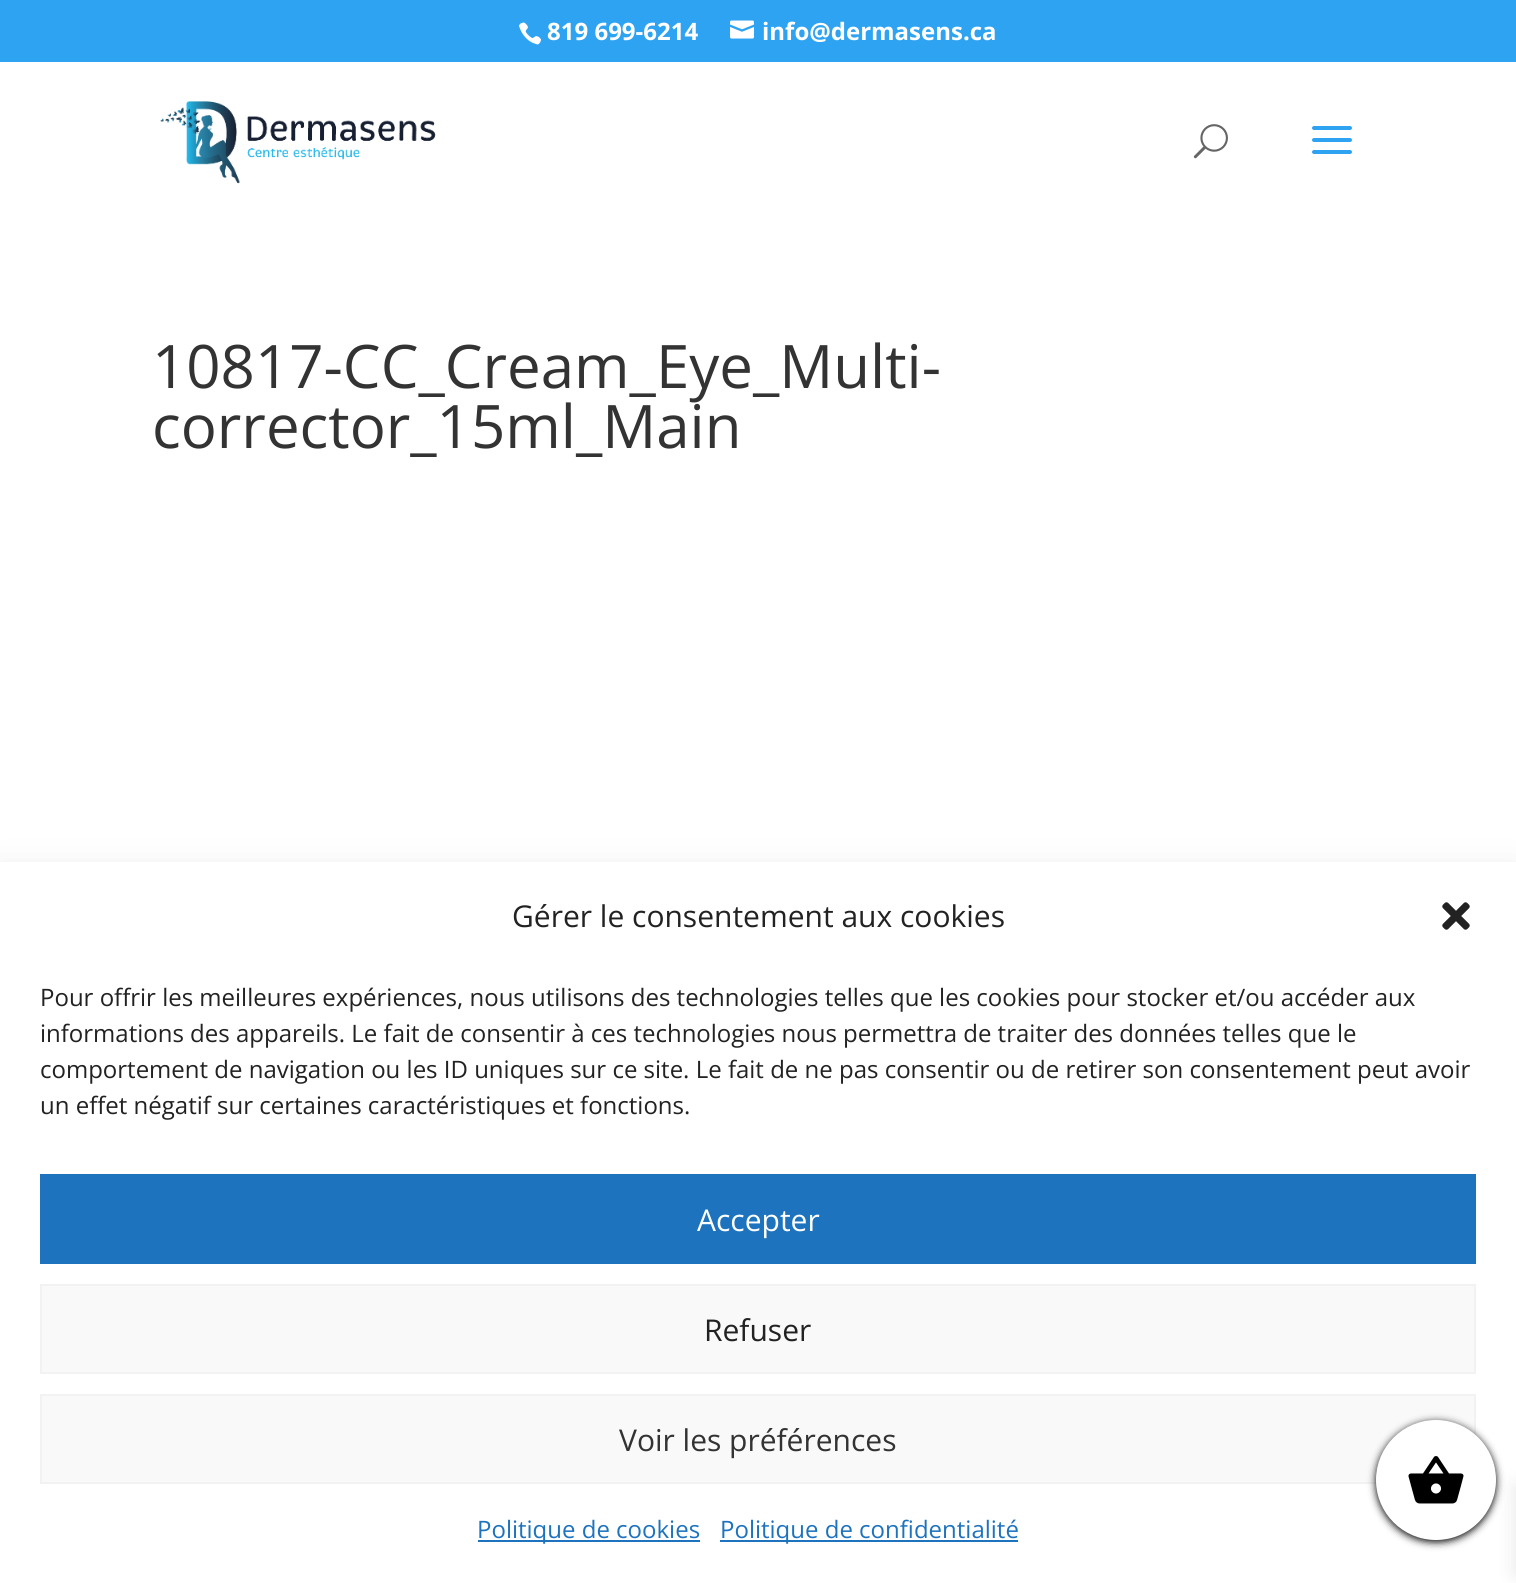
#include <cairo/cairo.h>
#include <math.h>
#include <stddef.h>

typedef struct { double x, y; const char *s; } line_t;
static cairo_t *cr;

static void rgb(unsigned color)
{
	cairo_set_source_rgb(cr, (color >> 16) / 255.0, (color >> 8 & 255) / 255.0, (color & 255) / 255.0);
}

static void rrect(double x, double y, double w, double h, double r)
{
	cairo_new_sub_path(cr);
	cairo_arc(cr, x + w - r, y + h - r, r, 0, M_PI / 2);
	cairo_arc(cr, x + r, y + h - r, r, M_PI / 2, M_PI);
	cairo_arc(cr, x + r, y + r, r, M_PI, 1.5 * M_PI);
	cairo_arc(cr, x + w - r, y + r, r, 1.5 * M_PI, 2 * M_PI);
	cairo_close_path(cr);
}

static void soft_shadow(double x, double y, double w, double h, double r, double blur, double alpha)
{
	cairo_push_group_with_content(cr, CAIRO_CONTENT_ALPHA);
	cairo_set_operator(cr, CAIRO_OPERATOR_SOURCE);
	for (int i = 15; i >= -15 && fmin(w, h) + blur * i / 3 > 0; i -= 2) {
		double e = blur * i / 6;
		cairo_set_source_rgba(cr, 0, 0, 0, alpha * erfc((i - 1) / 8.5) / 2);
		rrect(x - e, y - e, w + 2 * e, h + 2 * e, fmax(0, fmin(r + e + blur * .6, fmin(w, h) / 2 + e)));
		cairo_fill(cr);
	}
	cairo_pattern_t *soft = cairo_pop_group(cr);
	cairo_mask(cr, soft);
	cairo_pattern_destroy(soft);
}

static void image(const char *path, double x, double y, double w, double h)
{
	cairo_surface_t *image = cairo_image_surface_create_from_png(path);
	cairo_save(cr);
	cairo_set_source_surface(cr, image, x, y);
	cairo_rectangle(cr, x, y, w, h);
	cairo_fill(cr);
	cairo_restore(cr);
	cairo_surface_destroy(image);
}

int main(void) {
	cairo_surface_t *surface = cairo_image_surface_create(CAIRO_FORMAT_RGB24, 1516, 1583);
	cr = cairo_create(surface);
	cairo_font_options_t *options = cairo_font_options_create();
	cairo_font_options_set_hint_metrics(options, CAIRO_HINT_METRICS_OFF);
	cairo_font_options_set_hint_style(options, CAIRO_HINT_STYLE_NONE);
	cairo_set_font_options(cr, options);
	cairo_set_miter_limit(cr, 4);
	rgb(0xffffff);
	cairo_paint(cr);
	rgb(0x2ea3f2);
	cairo_rectangle(cr, 0, 0, 1516, 62);
	cairo_fill(cr);
	image("img/1.png", 519, 22, 22, 23);
	image("img/2.png", 730, 20, 24, 19);
	image("img/3.png", 160, 101, 276, 83);
	image("img/4.png", 1193, 124, 35, 35);
	image("img/5.png", 1312, 126, 40, 28);
	rgb(0x000000);
	soft_shadow(0, 882, 1516, 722, 0, 20, 0.19);
	rgb(0xffffff);
	cairo_rectangle(cr, 0, 862, 1516, 721);
	cairo_fill(cr);
	image("img/6.png", 1442, 902, 28, 28);
	rgb(0x1e73be);
	cairo_rectangle(cr, 40, 1174, 1436, 90);
	cairo_fill(cr);
	rgb(0xf9f9f9);
	cairo_rectangle(cr, 41, 1285, 1434, 88);
	cairo_fill_preserve(cr);
	rgb(0xf2f2f2);
	cairo_stroke(cr);
	rgb(0xf9f9f9);
	cairo_rectangle(cr, 41, 1395, 1434, 88);
	cairo_fill_preserve(cr);
	rgb(0xf2f2f2);
	cairo_stroke(cr);
	rgb(0x1e73be);
	cairo_rectangle(cr, 478, 1540, 222, 2);
	cairo_fill(cr);
	cairo_rectangle(cr, 720, 1540, 298, 2);
	cairo_fill(cr);
	rgb(0x000000);
	soft_shadow(1376, 1422, 120, 120, 60, 4, 1);
	soft_shadow(1516, 1486, 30, 88, 0, 10, 0.1);
	rgb(0xffffff);
	cairo_arc(cr, 1436, 1480, 60, 0, 2 * M_PI);
	cairo_fill(cr);
	image("img/7.png", 1408, 1456, 56, 48);
	cairo_select_font_face(cr, "Open Sans", CAIRO_FONT_SLANT_NORMAL, CAIRO_FONT_WEIGHT_BOLD);
	cairo_set_font_size(cr, 24);
	cairo_move_to(cr, 547, 40);
	cairo_show_text(cr, "819 699-6214");
	cairo_move_to(cr, 762, 40);
	cairo_show_text(cr, "info@dermasens.ca");
	cairo_select_font_face(cr, "Open Sans", CAIRO_FONT_SLANT_NORMAL, CAIRO_FONT_WEIGHT_NORMAL);
	cairo_set_font_size(cr, 60);
	rgb(0x333333);
	cairo_move_to(cr, 152, 388);
	cairo_show_text(cr, "10817-CC_Cream_Eye_Multi-");
	cairo_move_to(cr, 152, 448);
	cairo_show_text(cr, "corrector_15ml_Main");
	cairo_set_font_size(cr, 30);
	rgb(0x222222);
	cairo_move_to(cr, 512, 927);
	cairo_show_text(cr, "Gérer le consentement aux cookies");
	cairo_set_font_size(cr, 24);
	{
		static const line_t items[] = {
			{40, 1006, "Pour offrir les meilleures expériences, nous utilisons des technologies telles que les cookies pour stocker et/ou accéder aux"},
			{40, 1042, "informations des appareils. Le fait de consentir à ces technologies nous permettra de traiter des données telles que le"},
			{40, 1078, "comportement de navigation ou les ID uniques sur ce site. Le fait de ne pas consentir ou de retirer son consentement peut avoir"},
			{40, 1114, "un effet négatif sur certaines caractéristiques et fonctions."},
		};
		for (size_t i = 0; i < sizeof items / sizeof *items; i++) {
			cairo_move_to(cr, items[i].x, items[i].y);
			cairo_show_text(cr, items[i].s);
		}
	}
	cairo_set_font_size(cr, 30);
	rgb(0xffffff);
	cairo_move_to(cr, 697, 1231);
	cairo_show_text(cr, "Accepter");
	rgb(0x222222);
	cairo_move_to(cr, 704, 1341);
	cairo_show_text(cr, "Refuser");
	rgb(0x333333);
	cairo_move_to(cr, 619, 1451);
	cairo_show_text(cr, "Voir les préférences");
	cairo_set_font_size(cr, 24);
	rgb(0x1e73be);
	cairo_move_to(cr, 477, 1538);
	cairo_show_text(cr, "Politique de cookies");
	cairo_move_to(cr, 720, 1538);
	cairo_show_text(cr, "Politique de confidentialité");
	cairo_surface_write_to_png(surface, "page.png");
	cairo_font_options_destroy(options);
	cairo_destroy(cr);
	cairo_surface_destroy(surface);
	return 0;
}
